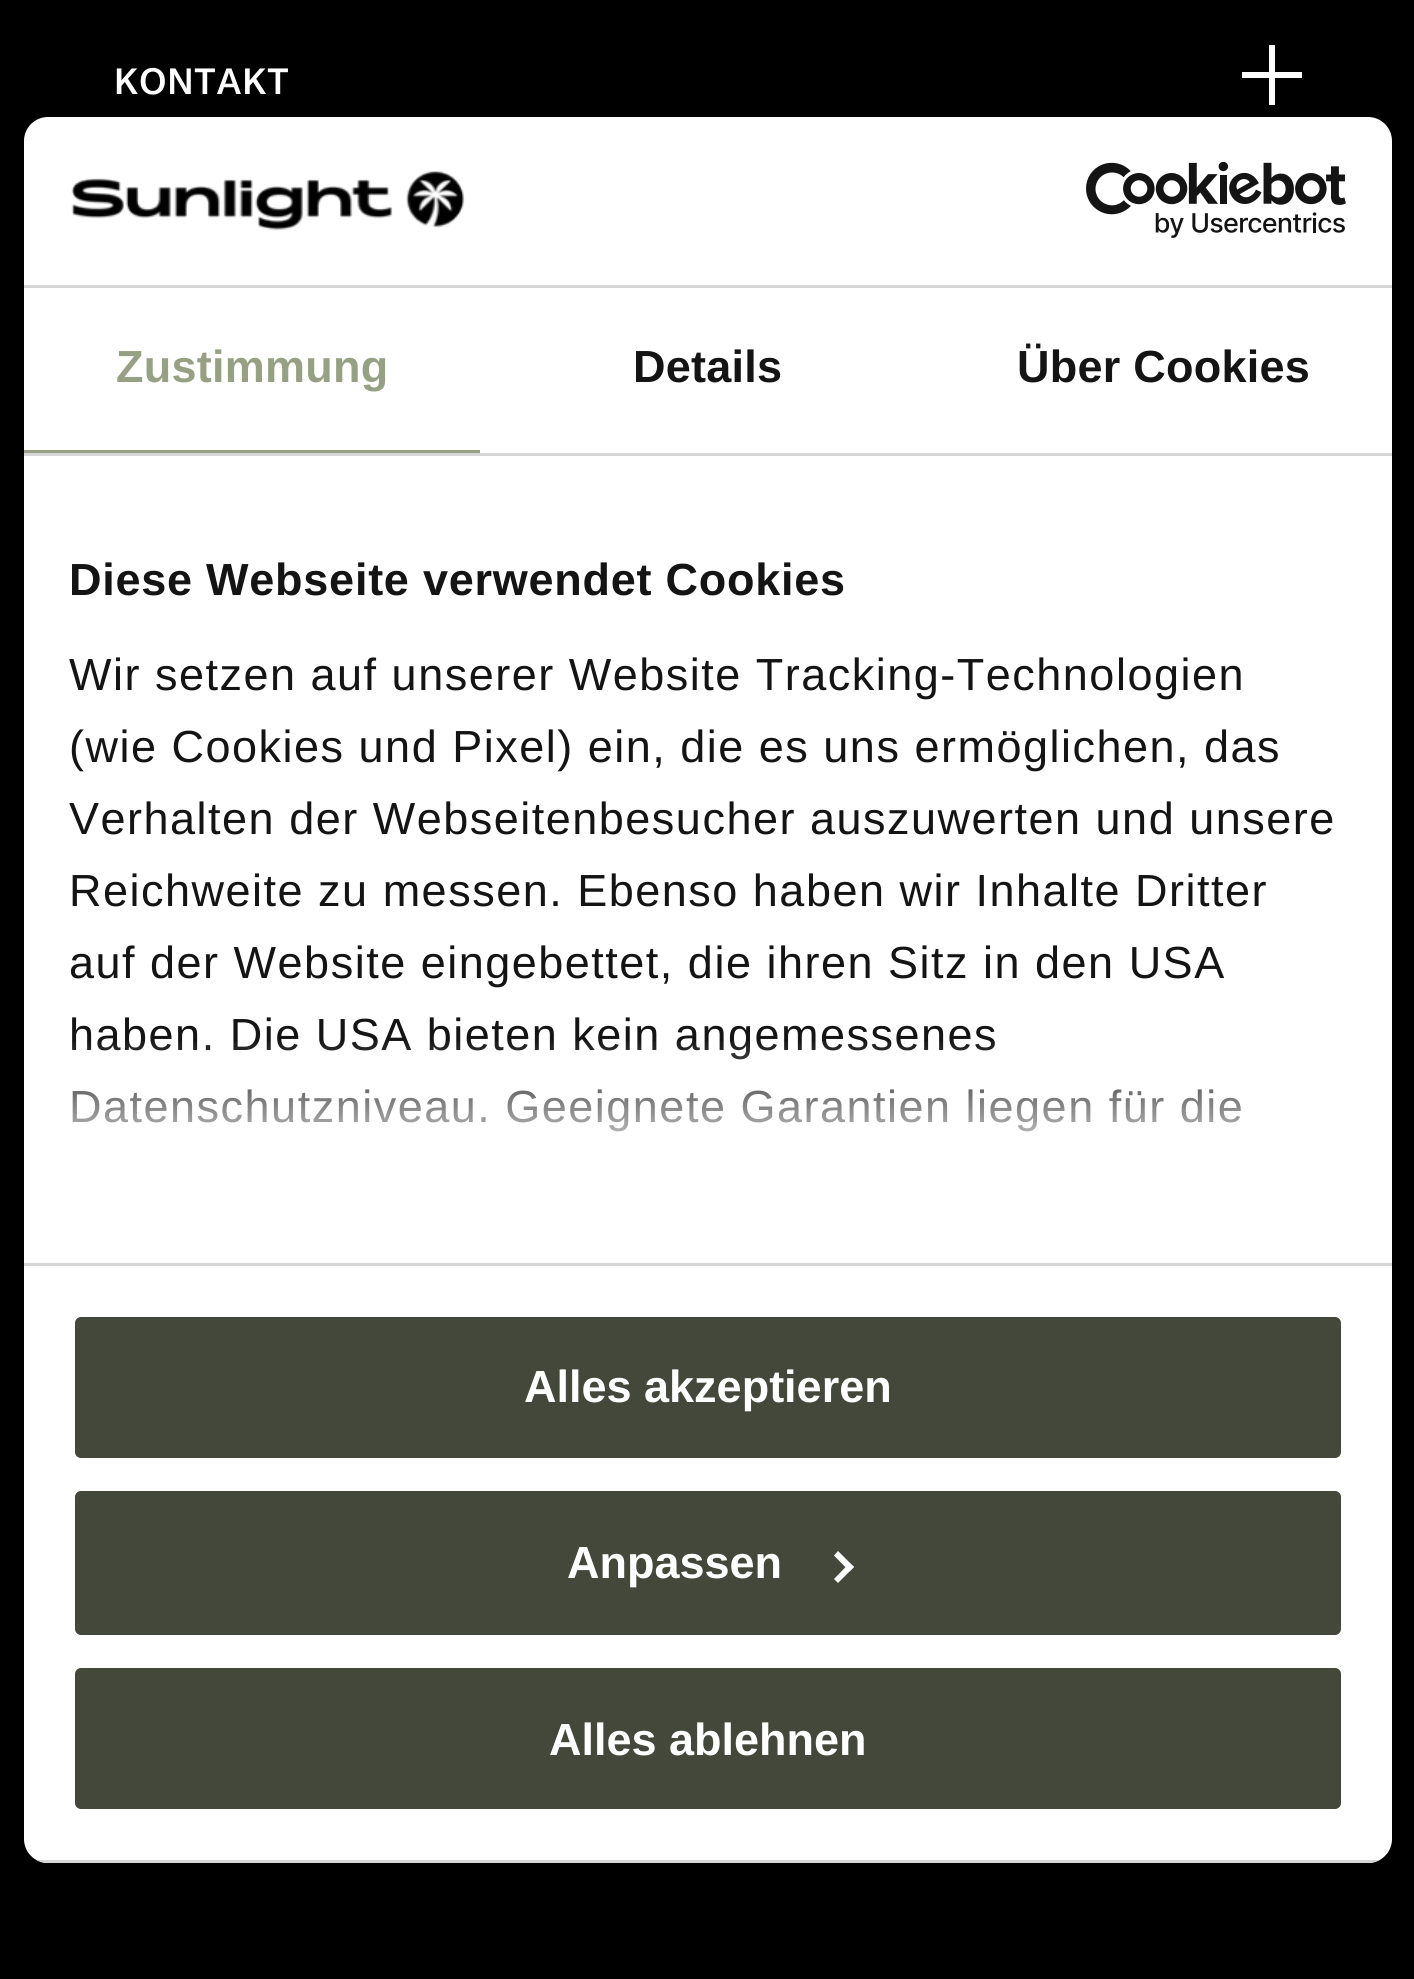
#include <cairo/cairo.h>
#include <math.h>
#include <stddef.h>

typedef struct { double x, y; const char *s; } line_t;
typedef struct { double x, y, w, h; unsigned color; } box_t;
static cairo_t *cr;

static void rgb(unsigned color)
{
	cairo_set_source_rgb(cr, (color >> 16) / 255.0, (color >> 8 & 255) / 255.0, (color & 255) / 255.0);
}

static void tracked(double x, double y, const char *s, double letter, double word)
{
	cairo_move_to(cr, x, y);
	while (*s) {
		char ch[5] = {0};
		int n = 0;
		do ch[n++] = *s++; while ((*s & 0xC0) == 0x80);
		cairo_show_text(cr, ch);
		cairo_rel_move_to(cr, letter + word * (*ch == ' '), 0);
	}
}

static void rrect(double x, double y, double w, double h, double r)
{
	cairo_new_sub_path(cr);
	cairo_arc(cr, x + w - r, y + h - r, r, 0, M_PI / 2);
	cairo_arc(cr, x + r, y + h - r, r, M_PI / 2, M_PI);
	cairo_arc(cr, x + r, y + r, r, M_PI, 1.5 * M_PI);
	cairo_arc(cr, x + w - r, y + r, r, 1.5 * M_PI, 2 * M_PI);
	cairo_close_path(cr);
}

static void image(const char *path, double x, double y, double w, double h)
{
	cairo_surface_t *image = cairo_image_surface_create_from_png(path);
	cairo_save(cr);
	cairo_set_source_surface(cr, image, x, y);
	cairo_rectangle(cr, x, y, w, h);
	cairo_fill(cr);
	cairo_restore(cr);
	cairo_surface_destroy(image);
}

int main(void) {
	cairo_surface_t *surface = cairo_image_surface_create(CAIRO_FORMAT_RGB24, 1414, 1979);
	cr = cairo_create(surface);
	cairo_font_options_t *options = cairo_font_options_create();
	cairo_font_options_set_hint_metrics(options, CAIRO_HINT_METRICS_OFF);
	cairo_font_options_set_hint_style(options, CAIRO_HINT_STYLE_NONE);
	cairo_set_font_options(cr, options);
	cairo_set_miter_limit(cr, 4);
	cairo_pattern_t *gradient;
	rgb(0x000000);
	cairo_paint(cr);
	rgb(0xffffff);
	cairo_new_path(cr);
	cairo_move_to(cr, 1302, 78);
	cairo_line_to(cr, 1242, 78);
	cairo_line_to(cr, 1242, 72);
	cairo_line_to(cr, 1302, 72);
	cairo_close_path(cr);
	cairo_move_to(cr, 1269, 105);
	cairo_line_to(cr, 1269, 45);
	cairo_line_to(cr, 1275, 45);
	cairo_line_to(cr, 1275, 105);
	cairo_close_path(cr);
	cairo_fill(cr);
	rrect(24, 117, 1368, 1746, 24);
	cairo_fill(cr);
	rgb(0xd6d6d6);
	cairo_rectangle(cr, 24, 285, 1368, 3);
	cairo_fill(cr);
	image("img/1.png", 71, 170, 394, 61);
	image("img/2.png", 1086, 162, 260, 76);
	{
		static const box_t items[] = {
			{24, 453, 1368, 3, 0xd6d6d6},
			{24, 450, 456, 3, 0x96a183},
			{24, 1263, 1368, 3, 0xd6d6d6},
		};
		for (size_t i = 0; i < sizeof items / sizeof *items; i++) {
			rgb(items[i].color);
			cairo_rectangle(cr, items[i].x, items[i].y, items[i].w, items[i].h);
			cairo_fill(cr);
		}
	}
	cairo_save(cr);
	rrect(24, 117, 1368, 1746, 24);
	cairo_clip(cr);
	cairo_rectangle(cr, 36, 1860, 1344, 3);
	cairo_fill(cr);
	cairo_restore(cr);
	rgb(0x43483b);
	rrect(72, 1314, 1272, 147, 9);
	cairo_fill_preserve(cr);
	rgb(0xffffff);
	cairo_set_line_width(cr, 6);
	cairo_stroke(cr);
	rgb(0x43483b);
	rrect(72, 1488, 1272, 150, 9);
	cairo_fill_preserve(cr);
	rgb(0xffffff);
	cairo_stroke(cr);
	cairo_new_path(cr);
	cairo_move_to(cr, 838, 1551);
	cairo_line_to(cr, 854, 1567);
	cairo_line_to(cr, 849.5, 1571.5);
	cairo_line_to(cr, 834, 1555.5);
	cairo_close_path(cr);
	cairo_fill(cr);
	cairo_new_path(cr);
	cairo_move_to(cr, 849.5, 1563);
	cairo_line_to(cr, 854, 1567);
	cairo_line_to(cr, 838, 1583);
	cairo_line_to(cr, 834, 1579);
	cairo_close_path(cr);
	cairo_fill(cr);
	rgb(0x43483b);
	rrect(72, 1665, 1272, 147, 9);
	cairo_fill_preserve(cr);
	rgb(0xffffff);
	cairo_stroke(cr);
	cairo_select_font_face(cr, "GT America Medium", CAIRO_FONT_SLANT_NORMAL, CAIRO_FONT_WEIGHT_NORMAL);
	cairo_set_font_size(cr, 36);
	tracked(114, 94, "KONTAKT", 1, 0);
	cairo_select_font_face(cr, "Liberation Sans", CAIRO_FONT_SLANT_NORMAL, CAIRO_FONT_WEIGHT_BOLD);
	cairo_set_font_size(cr, 45);
	rgb(0x96a183);
	tracked(116, 382, "Zustimmung", 0.25, 0);
	rgb(0x141414);
	tracked(633, 382, "Details", 0.25, 0);
	tracked(1017, 382, "Über Cookies", 0.25, 0);
	tracked(69, 595, "Diese Webseite verwendet Cookies", 0.75, 0);
	cairo_select_font_face(cr, "Liberation Sans", CAIRO_FONT_SLANT_NORMAL, CAIRO_FONT_WEIGHT_NORMAL);
	{
		static const line_t items[] = {
			{69, 690, "Wir setzen auf unserer Website Tracking-Technologien"},
			{69, 762, "(wie Cookies und Pixel) ein, die es uns ermöglichen, das"},
			{69, 834, "Verhalten der Webseitenbesucher auszuwerten und unsere"},
			{69, 906, "Reichweite zu messen. Ebenso haben wir Inhalte Dritter"},
			{69, 978, "auf der Website eingebettet, die ihren Sitz in den USA"},
			{69, 1050, "haben. Die USA bieten kein angemessenes"},
			{69, 1122, "Datenschutzniveau. Geeignete Garantien liegen für die"},
		};
		for (size_t i = 0; i < sizeof items / sizeof *items; i++) {
			tracked(items[i].x, items[i].y, items[i].s, 1.5, 0);
		}
	}
	gradient = cairo_pattern_create_linear(689, 1263, 689, 1038);
	cairo_pattern_add_color_stop_rgba(gradient, 0, 1, 1, 1, 1);
	cairo_pattern_add_color_stop_rgba(gradient, 0.5, 1, 1, 1, 0.8);
	cairo_pattern_add_color_stop_rgba(gradient, 1, 1, 1, 1, 0);
	cairo_set_source(cr, gradient);
	cairo_pattern_destroy(gradient);
	cairo_rectangle(cr, 72, 1041, 1169, 91);
	cairo_fill(cr);
	cairo_select_font_face(cr, "Liberation Sans", CAIRO_FONT_SLANT_NORMAL, CAIRO_FONT_WEIGHT_BOLD);
	rgb(0xffffff);
	{
		static const line_t items[] = {
			{524, 1402, "Alles akzeptieren"},
			{567, 1578, "Anpassen"},
			{549, 1755, "Alles ablehnen"},
		};
		for (size_t i = 0; i < sizeof items / sizeof *items; i++) {
			cairo_move_to(cr, items[i].x, items[i].y);
			cairo_show_text(cr, items[i].s);
		}
	}
	cairo_surface_write_to_png(surface, "page.png");
	cairo_font_options_destroy(options);
	cairo_destroy(cr);
	cairo_surface_destroy(surface);
	return 0;
}
